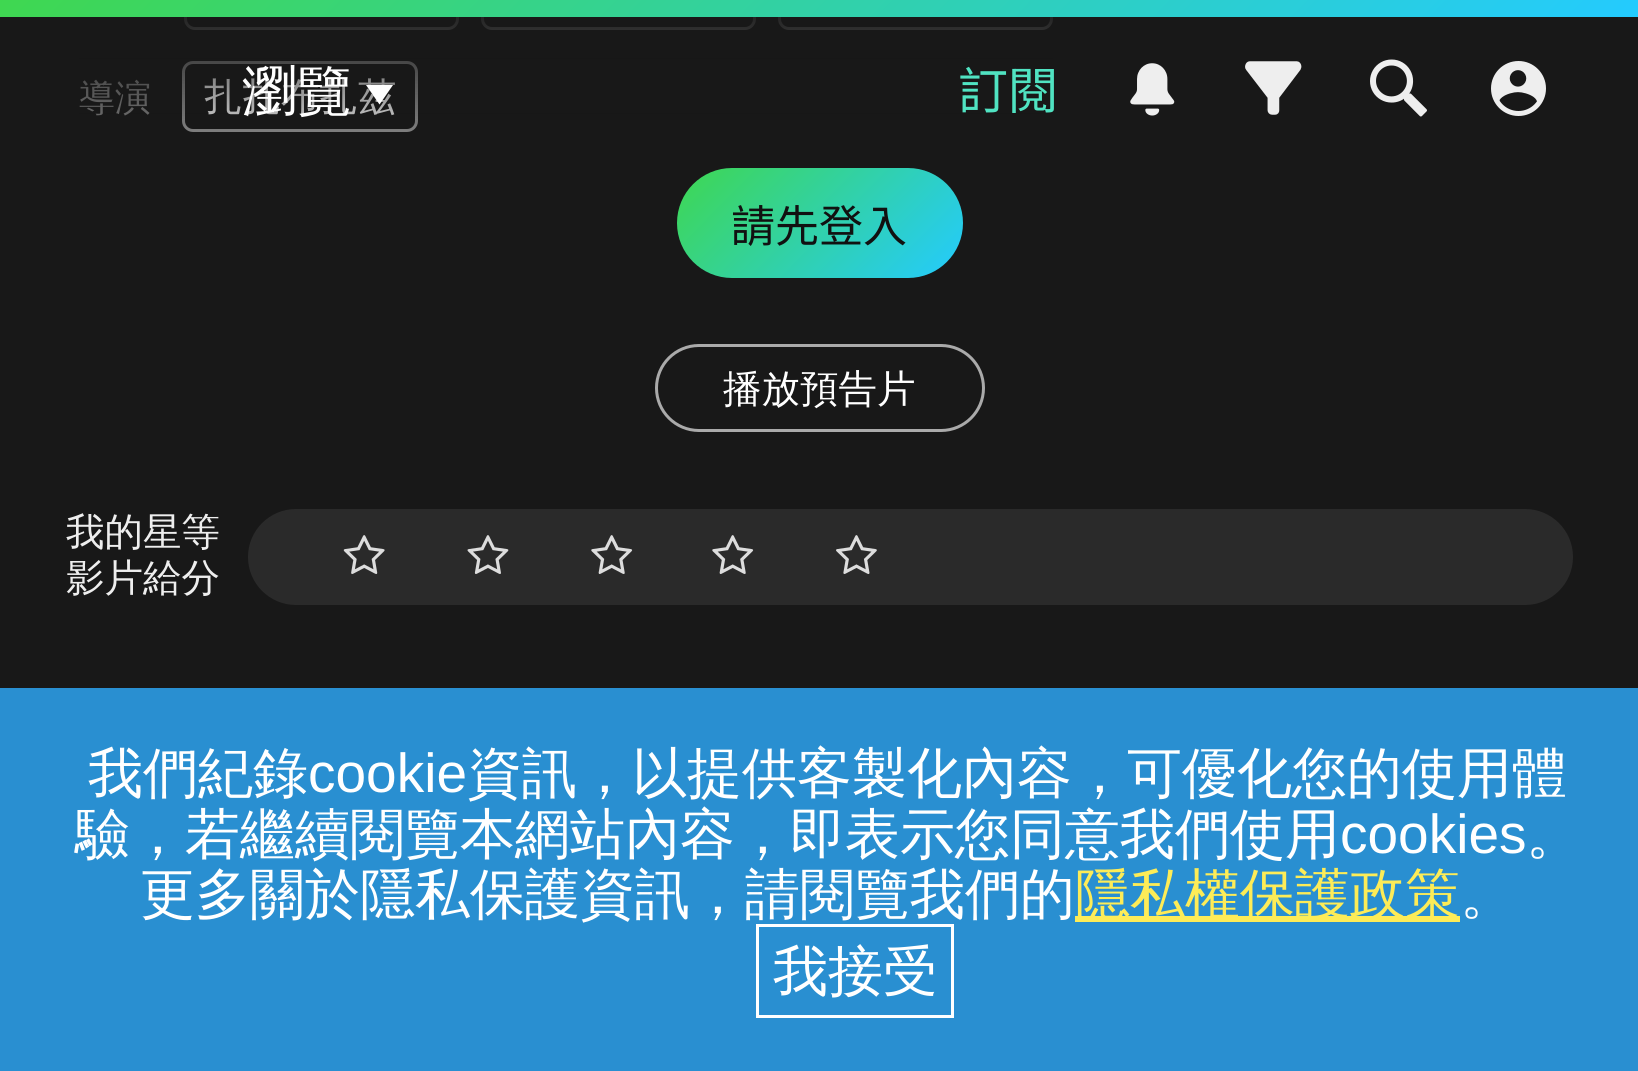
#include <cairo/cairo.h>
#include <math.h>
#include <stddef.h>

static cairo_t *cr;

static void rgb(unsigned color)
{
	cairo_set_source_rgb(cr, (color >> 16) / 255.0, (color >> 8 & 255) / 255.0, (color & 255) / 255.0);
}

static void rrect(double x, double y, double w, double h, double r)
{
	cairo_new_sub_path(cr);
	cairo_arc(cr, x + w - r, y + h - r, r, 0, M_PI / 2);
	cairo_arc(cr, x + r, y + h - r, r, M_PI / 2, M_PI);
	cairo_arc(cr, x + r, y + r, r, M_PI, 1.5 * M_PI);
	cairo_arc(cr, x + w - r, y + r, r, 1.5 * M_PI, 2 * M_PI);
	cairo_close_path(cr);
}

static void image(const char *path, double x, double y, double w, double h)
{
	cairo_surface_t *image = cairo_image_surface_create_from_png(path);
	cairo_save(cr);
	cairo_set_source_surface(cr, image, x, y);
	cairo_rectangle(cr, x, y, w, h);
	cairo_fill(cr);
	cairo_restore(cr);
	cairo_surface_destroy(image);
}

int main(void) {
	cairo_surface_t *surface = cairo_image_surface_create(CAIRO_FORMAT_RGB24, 1638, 1071);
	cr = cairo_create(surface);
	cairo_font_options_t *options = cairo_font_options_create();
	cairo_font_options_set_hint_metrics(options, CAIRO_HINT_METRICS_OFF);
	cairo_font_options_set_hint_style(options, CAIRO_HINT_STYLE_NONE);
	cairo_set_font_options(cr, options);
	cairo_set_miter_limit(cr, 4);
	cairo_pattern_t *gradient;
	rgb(0x181818);
	cairo_paint(cr);
	rrect(185.5, -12.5, 272, 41, 9.5);
	rgb(0x979797);
	cairo_set_line_width(cr, 3);
	cairo_stroke(cr);
	rrect(482.5, -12.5, 272, 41, 9.5);
	cairo_stroke(cr);
	rrect(779.5, -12.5, 272, 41, 9.5);
	cairo_stroke(cr);
	gradient = cairo_pattern_create_linear(402, -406, 1237, 422);
	cairo_pattern_add_color_stop_rgba(gradient, 0, 0.247, 0.843, 0.314, 1);
	cairo_pattern_add_color_stop_rgba(gradient, 1, 0.141, 0.796, 1, 1);
	cairo_set_source(cr, gradient);
	cairo_pattern_destroy(gradient);
	cairo_rectangle(cr, 0, 0, 1638, 17);
	cairo_fill(cr);
	image("img/1.png", 1130, 63, 45, 53);
	image("img/2.png", 1245, 61, 57, 54);
	image("img/3.png", 1370, 59, 57, 58);
	image("img/4.png", 1491, 61, 55, 55);
	rrect(183.5, 62.5, 233, 68, 9.5);
	rgb(0x979797);
	cairo_stroke(cr);
	gradient = cairo_pattern_create_linear(720, 124, 919, 321);
	cairo_pattern_add_color_stop_rgba(gradient, 0, 0.247, 0.843, 0.314, 1);
	cairo_pattern_add_color_stop_rgba(gradient, 1, 0.141, 0.796, 1, 1);
	cairo_set_source(cr, gradient);
	cairo_pattern_destroy(gradient);
	rrect(677, 168, 286, 110, 55);
	cairo_fill(cr);
	rrect(656.5, 345.5, 327, 85, 42.5);
	rgb(0xaaaaaa);
	cairo_stroke(cr);
	rgb(0x2a2a2a);
	rrect(248, 509, 1325, 96, 48);
	cairo_fill(cr);
	image("img/5.png", 343, 535, 42, 39);
	image("img/6.png", 467, 535, 42, 39);
	image("img/7.png", 591, 535, 42, 39);
	image("img/7.png", 712, 535, 42, 39);
	image("img/8.png", 836, 535, 41, 39);
	rgb(0x298fd1);
	cairo_rectangle(cr, 0, 688, 1638, 383);
	cairo_fill(cr);
	rgb(0xfdec57);
	cairo_rectangle(cr, 1075, 916, 385, 6);
	cairo_fill(cr);
	cairo_rectangle(cr, 757.5, 925.5, 195, 91);
	rgb(0xffffff);
	cairo_stroke(cr);
	cairo_select_font_face(cr, "WenQuanYi Zen Hei Medium", CAIRO_FONT_SLANT_NORMAL, CAIRO_FONT_WEIGHT_NORMAL);
	cairo_set_font_size(cr, 36);
	rgb(0x888888);
	cairo_move_to(cr, 79, 110);
	cairo_show_text(cr, "導演");
	cairo_set_font_size(cr, 38.5);
	rgb(0xffffff);
	cairo_move_to(cr, 204, 110);
	cairo_show_text(cr, "扎扎布扎茲");
	gradient = cairo_pattern_create_linear(820, 0, 820, 165);
	cairo_pattern_add_color_stop_rgba(gradient, 0, 0.094, 0.094, 0.094, 1);
	cairo_pattern_add_color_stop_rgba(gradient, 1, 0.094, 0.094, 0.094, 0);
	cairo_set_source(cr, gradient);
	cairo_pattern_destroy(gradient);
	cairo_rectangle(cr, 79, 17, 974, 115);
	cairo_fill(cr);
	cairo_select_font_face(cr, "Noto Sans TC Thin", CAIRO_FONT_SLANT_NORMAL, CAIRO_FONT_WEIGHT_NORMAL);
	cairo_set_font_size(cr, 50);
	rgb(0x50e3c2);
	cairo_move_to(cr, 958, 109);
	cairo_show_text(cr, "訂閱");
	rgb(0xffffff);
	cairo_new_path(cr);
	cairo_move_to(cr, 366, 85);
	cairo_line_to(cr, 393, 85);
	cairo_line_to(cr, 379.5, 104.5);
	cairo_close_path(cr);
	cairo_fill(cr);
	cairo_select_font_face(cr, "WenQuanYi Zen Hei Medium", CAIRO_FONT_SLANT_NORMAL, CAIRO_FONT_WEIGHT_NORMAL);
	cairo_set_font_size(cr, 55);
	cairo_move_to(cr, 242, 110);
	cairo_show_text(cr, "瀏覽");
	cairo_select_font_face(cr, "Noto Sans TC Thin", CAIRO_FONT_SLANT_NORMAL, CAIRO_FONT_WEIGHT_NORMAL);
	cairo_set_font_size(cr, 44);
	rgb(0x111111);
	cairo_move_to(cr, 731, 242);
	cairo_show_text(cr, "請先登入");
	cairo_select_font_face(cr, "WenQuanYi Zen Hei Medium", CAIRO_FONT_SLANT_NORMAL, CAIRO_FONT_WEIGHT_NORMAL);
	cairo_set_font_size(cr, 38.5);
	rgb(0xffffff);
	cairo_move_to(cr, 723, 402);
	cairo_show_text(cr, "播放預告片");
	rgb(0xeeeeee);
	cairo_move_to(cr, 66, 545);
	cairo_show_text(cr, "我的星等");
	cairo_move_to(cr, 66, 591);
	cairo_show_text(cr, "影片給分");
	cairo_set_font_size(cr, 55);
	rgb(0xffffff);
	cairo_move_to(cr, 88, 792);
	cairo_show_text(cr, "我們紀錄");
	cairo_select_font_face(cr, "Liberation Sans", CAIRO_FONT_SLANT_NORMAL, CAIRO_FONT_WEIGHT_NORMAL);
	cairo_move_to(cr, 308, 792);
	cairo_show_text(cr, "cookie");
	cairo_select_font_face(cr, "WenQuanYi Zen Hei Medium", CAIRO_FONT_SLANT_NORMAL, CAIRO_FONT_WEIGHT_NORMAL);
	cairo_move_to(cr, 467, 792);
	cairo_show_text(cr, "資訊，以提供客製化內容，可優化您的使用體");
	cairo_move_to(cr, 75, 853);
	cairo_show_text(cr, "驗，若繼續閱覽本網站內容，即表示您同意我們使用");
	cairo_select_font_face(cr, "Liberation Sans", CAIRO_FONT_SLANT_NORMAL, CAIRO_FONT_WEIGHT_NORMAL);
	cairo_move_to(cr, 1340, 853);
	cairo_show_text(cr, "cookies");
	cairo_select_font_face(cr, "WenQuanYi Zen Hei Medium", CAIRO_FONT_SLANT_NORMAL, CAIRO_FONT_WEIGHT_NORMAL);
	cairo_move_to(cr, 1526, 853);
	cairo_show_text(cr, "。");
	cairo_move_to(cr, 140, 913);
	cairo_show_text(cr, "更多關於隱私保護資訊，請閱覽我們的");
	rgb(0xfdec57);
	cairo_move_to(cr, 1075, 913);
	cairo_show_text(cr, "隱私權保護政策");
	rgb(0xffffff);
	cairo_move_to(cr, 1460, 913);
	cairo_show_text(cr, "。");
	cairo_move_to(cr, 773, 990);
	cairo_show_text(cr, "我接受");
	cairo_surface_write_to_png(surface, "page.png");
	cairo_font_options_destroy(options);
	cairo_destroy(cr);
	cairo_surface_destroy(surface);
	return 0;
}
